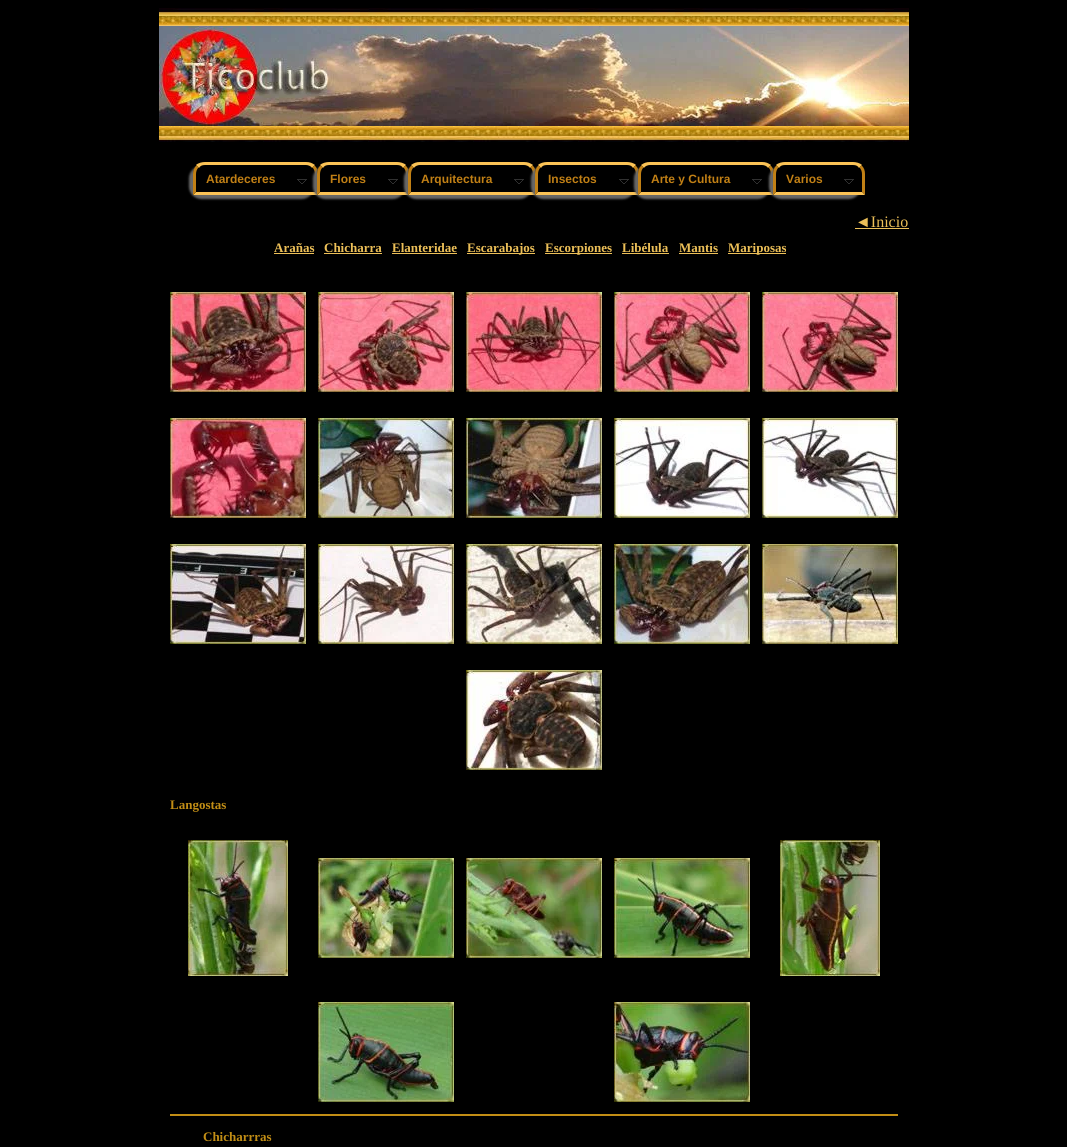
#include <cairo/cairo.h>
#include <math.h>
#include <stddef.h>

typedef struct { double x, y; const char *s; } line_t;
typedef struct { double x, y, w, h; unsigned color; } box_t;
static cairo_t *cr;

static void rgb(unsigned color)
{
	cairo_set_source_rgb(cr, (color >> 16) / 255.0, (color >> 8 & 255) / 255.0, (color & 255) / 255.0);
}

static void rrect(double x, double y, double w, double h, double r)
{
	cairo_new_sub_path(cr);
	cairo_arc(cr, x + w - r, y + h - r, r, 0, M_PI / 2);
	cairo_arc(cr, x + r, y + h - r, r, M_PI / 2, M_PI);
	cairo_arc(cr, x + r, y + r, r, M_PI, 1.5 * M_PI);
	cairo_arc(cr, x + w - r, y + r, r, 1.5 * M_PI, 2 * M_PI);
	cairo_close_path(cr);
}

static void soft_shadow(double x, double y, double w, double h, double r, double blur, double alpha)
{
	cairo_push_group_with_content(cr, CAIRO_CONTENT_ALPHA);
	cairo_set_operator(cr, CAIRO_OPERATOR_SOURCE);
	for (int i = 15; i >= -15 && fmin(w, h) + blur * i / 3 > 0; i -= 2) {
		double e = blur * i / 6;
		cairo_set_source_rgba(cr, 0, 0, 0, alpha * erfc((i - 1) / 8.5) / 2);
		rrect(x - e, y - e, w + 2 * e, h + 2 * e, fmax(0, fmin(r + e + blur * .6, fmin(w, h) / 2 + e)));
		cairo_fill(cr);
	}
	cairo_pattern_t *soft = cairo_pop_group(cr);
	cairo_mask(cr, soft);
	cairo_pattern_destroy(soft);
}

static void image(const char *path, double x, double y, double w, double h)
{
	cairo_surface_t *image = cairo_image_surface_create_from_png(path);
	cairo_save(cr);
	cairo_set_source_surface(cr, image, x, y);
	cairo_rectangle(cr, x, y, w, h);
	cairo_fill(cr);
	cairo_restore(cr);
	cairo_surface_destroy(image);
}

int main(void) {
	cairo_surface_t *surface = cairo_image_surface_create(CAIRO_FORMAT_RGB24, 1067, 1147);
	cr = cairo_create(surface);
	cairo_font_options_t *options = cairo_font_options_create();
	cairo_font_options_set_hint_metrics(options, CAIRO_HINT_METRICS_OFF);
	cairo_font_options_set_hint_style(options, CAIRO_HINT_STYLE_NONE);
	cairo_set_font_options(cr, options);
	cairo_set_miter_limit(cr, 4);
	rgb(0x000000);
	cairo_paint(cr);
	image("img/1.png", 159, 8, 750, 18);
	image("img/2.png", 159, 26, 750, 100);
	image("img/3.png", 159, 126, 750, 16);
	rgb(0x666666);
	soft_shadow(189, 166, 125, 33, 12, 1, 1);
	rgb(0x000000);
	cairo_new_path(cr);
	cairo_move_to(cr, 205, 162);
	cairo_line_to(cr, 306, 162);
	cairo_curve_to(cr, 312.5, 162, 318, 167.5, 318, 174);
	cairo_line_to(cr, 318, 195);
	cairo_line_to(cr, 193, 195);
	cairo_line_to(cr, 193, 174);
	cairo_curve_to(cr, 193, 167.5, 198.5, 162, 205, 162);
	cairo_close_path(cr);
	cairo_fill(cr);
	rgb(0xfbc356);
	cairo_new_path(cr);
	cairo_move_to(cr, 205, 162);
	cairo_curve_to(cr, 202, 162, 198, 163, 196, 165);
	cairo_line_to(cr, 199, 168);
	cairo_curve_to(cr, 200, 166, 202, 165, 205, 165);
	cairo_line_to(cr, 306, 165);
	cairo_curve_to(cr, 308, 165, 311, 166, 312, 168);
	cairo_line_to(cr, 315, 165);
	cairo_curve_to(cr, 312, 163, 310, 162, 306, 162);
	cairo_close_path(cr);
	cairo_fill(cr);
	rgb(0xc18015);
	cairo_new_path(cr);
	cairo_move_to(cr, 318, 195);
	cairo_line_to(cr, 318, 174);
	cairo_curve_to(cr, 318, 170.5, 317, 167.5, 314.5, 165.5);
	cairo_line_to(cr, 312.5, 167.5);
	cairo_curve_to(cr, 314, 169, 315, 171.5, 315, 174);
	cairo_line_to(cr, 315, 192);
	cairo_close_path(cr);
	cairo_fill(cr);
	rgb(0xfbc356);
	cairo_new_path(cr);
	cairo_move_to(cr, 318, 195);
	cairo_line_to(cr, 315, 192);
	cairo_line_to(cr, 196, 192);
	cairo_line_to(cr, 193, 195);
	cairo_close_path(cr);
	cairo_fill(cr);
	rgb(0xc18015);
	cairo_new_path(cr);
	cairo_move_to(cr, 193, 195);
	cairo_line_to(cr, 196, 192);
	cairo_line_to(cr, 196, 174);
	cairo_curve_to(cr, 196, 171.5, 197, 169, 198.5, 167.5);
	cairo_line_to(cr, 196.5, 165.5);
	cairo_curve_to(cr, 194, 167.5, 193, 170.5, 193, 174);
	cairo_close_path(cr);
	cairo_fill(cr);
	{
		static const box_t items[] = {
			{297, 179, 10, 1, 0x313131},
			{305, 180, 1, 1, 0x313131},
			{298, 180, 1, 1, 0x313131},
			{304, 181, 1, 1, 0x313131},
			{299, 181, 1, 1, 0x313131},
			{303, 182, 1, 1, 0x313131},
			{300, 182, 1, 1, 0x313131},
			{301, 183, 2, 1, 0x313131},
		};
		for (size_t i = 0; i < sizeof items / sizeof *items; i++) {
			rgb(items[i].color);
			cairo_rectangle(cr, items[i].x, items[i].y, items[i].w, items[i].h);
			cairo_fill(cr);
		}
	}
	rgb(0x666666);
	soft_shadow(313, 166, 92, 33, 12, 1, 1);
	rgb(0x000000);
	cairo_new_path(cr);
	cairo_move_to(cr, 329, 162);
	cairo_line_to(cr, 397, 162);
	cairo_curve_to(cr, 403.5, 162, 409, 167.5, 409, 174);
	cairo_line_to(cr, 409, 195);
	cairo_line_to(cr, 317, 195);
	cairo_line_to(cr, 317, 174);
	cairo_curve_to(cr, 317, 167.5, 322.5, 162, 329, 162);
	cairo_close_path(cr);
	cairo_fill(cr);
	rgb(0xfbc356);
	cairo_new_path(cr);
	cairo_move_to(cr, 329, 162);
	cairo_curve_to(cr, 326, 162, 322, 163, 320, 165);
	cairo_line_to(cr, 323, 168);
	cairo_curve_to(cr, 324, 166, 326, 165, 329, 165);
	cairo_line_to(cr, 397, 165);
	cairo_curve_to(cr, 400, 165, 402, 166, 403, 168);
	cairo_line_to(cr, 406, 165);
	cairo_curve_to(cr, 404, 163, 400, 162, 397, 162);
	cairo_close_path(cr);
	cairo_fill(cr);
	rgb(0xc18015);
	cairo_new_path(cr);
	cairo_move_to(cr, 409, 195);
	cairo_line_to(cr, 409, 174);
	cairo_curve_to(cr, 409, 170.5, 408, 167.5, 405.5, 165.5);
	cairo_line_to(cr, 403.5, 167.5);
	cairo_curve_to(cr, 405, 169, 406, 171.5, 406, 174);
	cairo_line_to(cr, 406, 192);
	cairo_close_path(cr);
	cairo_fill(cr);
	rgb(0xfbc356);
	cairo_new_path(cr);
	cairo_move_to(cr, 409, 195);
	cairo_line_to(cr, 406, 192);
	cairo_line_to(cr, 320, 192);
	cairo_line_to(cr, 317, 195);
	cairo_close_path(cr);
	cairo_fill(cr);
	rgb(0xc18015);
	cairo_new_path(cr);
	cairo_move_to(cr, 317, 195);
	cairo_line_to(cr, 320, 192);
	cairo_line_to(cr, 320, 174);
	cairo_curve_to(cr, 320, 171.5, 321, 169, 322.5, 167.5);
	cairo_line_to(cr, 320.5, 165.5);
	cairo_curve_to(cr, 318, 167.5, 317, 170.5, 317, 174);
	cairo_close_path(cr);
	cairo_fill(cr);
	{
		static const box_t items[] = {
			{388, 179, 10, 1, 0x313131},
			{396, 180, 1, 1, 0x313131},
			{389, 180, 1, 1, 0x313131},
			{395, 181, 1, 1, 0x313131},
			{390, 181, 1, 1, 0x313131},
			{394, 182, 1, 1, 0x313131},
			{391, 182, 1, 1, 0x313131},
			{392, 183, 2, 1, 0x313131},
		};
		for (size_t i = 0; i < sizeof items / sizeof *items; i++) {
			rgb(items[i].color);
			cairo_rectangle(cr, items[i].x, items[i].y, items[i].w, items[i].h);
			cairo_fill(cr);
		}
	}
	rgb(0x666666);
	soft_shadow(404, 166, 128, 33, 12, 1, 1);
	rgb(0x000000);
	cairo_new_path(cr);
	cairo_move_to(cr, 420, 162);
	cairo_line_to(cr, 524, 162);
	cairo_curve_to(cr, 530.5, 162, 536, 167.5, 536, 174);
	cairo_line_to(cr, 536, 195);
	cairo_line_to(cr, 408, 195);
	cairo_line_to(cr, 408, 174);
	cairo_curve_to(cr, 408, 167.5, 413.5, 162, 420, 162);
	cairo_close_path(cr);
	cairo_fill(cr);
	rgb(0xfbc356);
	cairo_new_path(cr);
	cairo_move_to(cr, 420, 162);
	cairo_curve_to(cr, 416, 162, 414, 163, 411, 165);
	cairo_line_to(cr, 414, 168);
	cairo_curve_to(cr, 415, 166, 418, 165, 420, 165);
	cairo_line_to(cr, 524, 165);
	cairo_curve_to(cr, 526, 165, 529, 166, 530, 168);
	cairo_line_to(cr, 533, 165);
	cairo_curve_to(cr, 530, 163, 528, 162, 524, 162);
	cairo_close_path(cr);
	cairo_fill(cr);
	rgb(0xc18015);
	cairo_new_path(cr);
	cairo_move_to(cr, 536, 195);
	cairo_line_to(cr, 536, 174);
	cairo_curve_to(cr, 536, 170.5, 535, 167.5, 532.5, 165.5);
	cairo_line_to(cr, 530.5, 167.5);
	cairo_curve_to(cr, 532, 169, 533, 171.5, 533, 174);
	cairo_line_to(cr, 533, 192);
	cairo_close_path(cr);
	cairo_fill(cr);
	rgb(0xfbc356);
	cairo_new_path(cr);
	cairo_move_to(cr, 536, 195);
	cairo_line_to(cr, 533, 192);
	cairo_line_to(cr, 411, 192);
	cairo_line_to(cr, 408, 195);
	cairo_close_path(cr);
	cairo_fill(cr);
	rgb(0xc18015);
	cairo_new_path(cr);
	cairo_move_to(cr, 408, 195);
	cairo_line_to(cr, 411, 192);
	cairo_line_to(cr, 411, 174);
	cairo_curve_to(cr, 411, 171.5, 412, 169, 413.5, 167.5);
	cairo_line_to(cr, 411.5, 165.5);
	cairo_curve_to(cr, 409, 167.5, 408, 170.5, 408, 174);
	cairo_close_path(cr);
	cairo_fill(cr);
	{
		static const box_t items[] = {
			{514, 179, 10, 1, 0x313131},
			{522, 180, 1, 1, 0x313131},
			{515, 180, 1, 1, 0x313131},
			{521, 181, 1, 1, 0x313131},
			{516, 181, 1, 1, 0x313131},
			{520, 182, 1, 1, 0x313131},
			{517, 182, 1, 1, 0x313131},
			{518, 183, 2, 1, 0x313131},
		};
		for (size_t i = 0; i < sizeof items / sizeof *items; i++) {
			rgb(items[i].color);
			cairo_rectangle(cr, items[i].x, items[i].y, items[i].w, items[i].h);
			cairo_fill(cr);
		}
	}
	rgb(0x666666);
	soft_shadow(531, 166, 104, 33, 12, 1, 1);
	rgb(0x000000);
	cairo_new_path(cr);
	cairo_move_to(cr, 547, 162);
	cairo_line_to(cr, 627, 162);
	cairo_curve_to(cr, 633.5, 162, 639, 167.5, 639, 174);
	cairo_line_to(cr, 639, 195);
	cairo_line_to(cr, 535, 195);
	cairo_line_to(cr, 535, 174);
	cairo_curve_to(cr, 535, 167.5, 540.5, 162, 547, 162);
	cairo_close_path(cr);
	cairo_fill(cr);
	rgb(0xfbc356);
	cairo_new_path(cr);
	cairo_move_to(cr, 547, 162);
	cairo_curve_to(cr, 544, 162, 540, 163, 538, 165);
	cairo_line_to(cr, 541, 168);
	cairo_curve_to(cr, 542, 166, 544, 165, 547, 165);
	cairo_line_to(cr, 627, 165);
	cairo_curve_to(cr, 630, 165, 632, 166, 633, 168);
	cairo_line_to(cr, 636, 165);
	cairo_curve_to(cr, 634, 163, 630, 162, 627, 162);
	cairo_close_path(cr);
	cairo_fill(cr);
	rgb(0xc18015);
	cairo_new_path(cr);
	cairo_move_to(cr, 639, 195);
	cairo_line_to(cr, 639, 174);
	cairo_curve_to(cr, 639, 170.5, 638, 167.5, 635.5, 165.5);
	cairo_line_to(cr, 633.5, 167.5);
	cairo_curve_to(cr, 635, 169, 636, 171.5, 636, 174);
	cairo_line_to(cr, 636, 192);
	cairo_close_path(cr);
	cairo_fill(cr);
	rgb(0xfbc356);
	cairo_new_path(cr);
	cairo_move_to(cr, 639, 195);
	cairo_line_to(cr, 636, 192);
	cairo_line_to(cr, 538, 192);
	cairo_line_to(cr, 535, 195);
	cairo_close_path(cr);
	cairo_fill(cr);
	rgb(0xc18015);
	cairo_new_path(cr);
	cairo_move_to(cr, 535, 195);
	cairo_line_to(cr, 538, 192);
	cairo_line_to(cr, 538, 174);
	cairo_curve_to(cr, 538, 171.5, 539, 169, 540.5, 167.5);
	cairo_line_to(cr, 538.5, 165.5);
	cairo_curve_to(cr, 536, 167.5, 535, 170.5, 535, 174);
	cairo_close_path(cr);
	cairo_fill(cr);
	{
		static const box_t items[] = {
			{619, 179, 10, 1, 0x313131},
			{627, 180, 1, 1, 0x313131},
			{620, 180, 1, 1, 0x313131},
			{626, 181, 1, 1, 0x313131},
			{621, 181, 1, 1, 0x313131},
			{625, 182, 1, 1, 0x313131},
			{622, 182, 1, 1, 0x313131},
			{623, 183, 2, 1, 0x313131},
		};
		for (size_t i = 0; i < sizeof items / sizeof *items; i++) {
			rgb(items[i].color);
			cairo_rectangle(cr, items[i].x, items[i].y, items[i].w, items[i].h);
			cairo_fill(cr);
		}
	}
	rgb(0x666666);
	soft_shadow(634, 166, 136, 33, 12, 1, 1);
	rgb(0x000000);
	cairo_new_path(cr);
	cairo_move_to(cr, 650, 162);
	cairo_line_to(cr, 762, 162);
	cairo_curve_to(cr, 768.5, 162, 774, 167.5, 774, 174);
	cairo_line_to(cr, 774, 195);
	cairo_line_to(cr, 638, 195);
	cairo_line_to(cr, 638, 174);
	cairo_curve_to(cr, 638, 167.5, 643.5, 162, 650, 162);
	cairo_close_path(cr);
	cairo_fill(cr);
	rgb(0xfbc356);
	cairo_new_path(cr);
	cairo_move_to(cr, 650, 162);
	cairo_curve_to(cr, 646, 162, 644, 163, 641, 165);
	cairo_line_to(cr, 644, 168);
	cairo_curve_to(cr, 645, 166, 648, 165, 650, 165);
	cairo_line_to(cr, 762, 165);
	cairo_curve_to(cr, 764, 165, 767, 166, 768, 168);
	cairo_line_to(cr, 771, 165);
	cairo_curve_to(cr, 768, 163, 766, 162, 762, 162);
	cairo_close_path(cr);
	cairo_fill(cr);
	rgb(0xc18015);
	cairo_new_path(cr);
	cairo_move_to(cr, 774, 195);
	cairo_line_to(cr, 774, 174);
	cairo_curve_to(cr, 774, 170.5, 773, 167.5, 770.5, 165.5);
	cairo_line_to(cr, 768.5, 167.5);
	cairo_curve_to(cr, 770, 169, 771, 171.5, 771, 174);
	cairo_line_to(cr, 771, 192);
	cairo_close_path(cr);
	cairo_fill(cr);
	rgb(0xfbc356);
	cairo_new_path(cr);
	cairo_move_to(cr, 774, 195);
	cairo_line_to(cr, 771, 192);
	cairo_line_to(cr, 641, 192);
	cairo_line_to(cr, 638, 195);
	cairo_close_path(cr);
	cairo_fill(cr);
	rgb(0xc18015);
	cairo_new_path(cr);
	cairo_move_to(cr, 638, 195);
	cairo_line_to(cr, 641, 192);
	cairo_line_to(cr, 641, 174);
	cairo_curve_to(cr, 641, 171.5, 642, 169, 643.5, 167.5);
	cairo_line_to(cr, 641.5, 165.5);
	cairo_curve_to(cr, 639, 167.5, 638, 170.5, 638, 174);
	cairo_close_path(cr);
	cairo_fill(cr);
	{
		static const box_t items[] = {
			{752, 179, 10, 1, 0x313131},
			{760, 180, 1, 1, 0x313131},
			{753, 180, 1, 1, 0x313131},
			{759, 181, 1, 1, 0x313131},
			{754, 181, 1, 1, 0x313131},
			{758, 182, 1, 1, 0x313131},
			{755, 182, 1, 1, 0x313131},
			{756, 183, 2, 1, 0x313131},
		};
		for (size_t i = 0; i < sizeof items / sizeof *items; i++) {
			rgb(items[i].color);
			cairo_rectangle(cr, items[i].x, items[i].y, items[i].w, items[i].h);
			cairo_fill(cr);
		}
	}
	rgb(0x666666);
	soft_shadow(769, 166, 92, 33, 12, 1, 1);
	rgb(0x000000);
	cairo_new_path(cr);
	cairo_move_to(cr, 785, 162);
	cairo_line_to(cr, 853, 162);
	cairo_curve_to(cr, 859.5, 162, 865, 167.5, 865, 174);
	cairo_line_to(cr, 865, 195);
	cairo_line_to(cr, 773, 195);
	cairo_line_to(cr, 773, 174);
	cairo_curve_to(cr, 773, 167.5, 778.5, 162, 785, 162);
	cairo_close_path(cr);
	cairo_fill(cr);
	rgb(0xfbc356);
	cairo_new_path(cr);
	cairo_move_to(cr, 785, 162);
	cairo_curve_to(cr, 782, 162, 778, 163, 776, 165);
	cairo_line_to(cr, 779, 168);
	cairo_curve_to(cr, 780, 166, 782, 165, 785, 165);
	cairo_line_to(cr, 853, 165);
	cairo_curve_to(cr, 856, 165, 858, 166, 859, 168);
	cairo_line_to(cr, 862, 165);
	cairo_curve_to(cr, 860, 163, 856, 162, 853, 162);
	cairo_close_path(cr);
	cairo_fill(cr);
	rgb(0xc18015);
	cairo_new_path(cr);
	cairo_move_to(cr, 865, 195);
	cairo_line_to(cr, 865, 174);
	cairo_curve_to(cr, 865, 170.5, 864, 167.5, 861.5, 165.5);
	cairo_line_to(cr, 859.5, 167.5);
	cairo_curve_to(cr, 861, 169, 862, 171.5, 862, 174);
	cairo_line_to(cr, 862, 192);
	cairo_close_path(cr);
	cairo_fill(cr);
	rgb(0xfbc356);
	cairo_new_path(cr);
	cairo_move_to(cr, 865, 195);
	cairo_line_to(cr, 862, 192);
	cairo_line_to(cr, 776, 192);
	cairo_line_to(cr, 773, 195);
	cairo_close_path(cr);
	cairo_fill(cr);
	rgb(0xc18015);
	cairo_new_path(cr);
	cairo_move_to(cr, 773, 195);
	cairo_line_to(cr, 776, 192);
	cairo_line_to(cr, 776, 174);
	cairo_curve_to(cr, 776, 171.5, 777, 169, 778.5, 167.5);
	cairo_line_to(cr, 776.5, 165.5);
	cairo_curve_to(cr, 774, 167.5, 773, 170.5, 773, 174);
	cairo_close_path(cr);
	cairo_fill(cr);
	{
		static const box_t items[] = {
			{844, 179, 10, 1, 0x313131},
			{852, 180, 1, 1, 0x313131},
			{845, 180, 1, 1, 0x313131},
			{851, 181, 1, 1, 0x313131},
			{846, 181, 1, 1, 0x313131},
			{850, 182, 1, 1, 0x313131},
			{847, 182, 1, 1, 0x313131},
			{848, 183, 2, 1, 0x313131},
			{855, 228, 54, 1, 0xedc058},
			{274, 253, 40, 1, 0xedc058},
			{324, 253, 58, 1, 0xedc058},
			{392, 253, 65, 1, 0xedc058},
			{467, 253, 68, 1, 0xedc058},
			{545, 253, 67, 1, 0xedc058},
			{622, 253, 47, 1, 0xedc058},
			{679, 253, 39, 1, 0xedc058},
			{728, 253, 58, 1, 0xedc058},
		};
		for (size_t i = 0; i < sizeof items / sizeof *items; i++) {
			rgb(items[i].color);
			cairo_rectangle(cr, items[i].x, items[i].y, items[i].w, items[i].h);
			cairo_fill(cr);
		}
	}
	image("img/4.png", 170, 292, 136, 100);
	image("img/5.png", 318, 292, 136, 100);
	image("img/6.png", 466, 292, 136, 100);
	image("img/7.png", 614, 292, 136, 100);
	image("img/8.png", 762, 292, 136, 100);
	image("img/9.png", 170, 418, 136, 100);
	image("img/10.png", 318, 418, 136, 100);
	image("img/11.png", 466, 418, 136, 100);
	image("img/12.png", 614, 418, 136, 100);
	image("img/13.png", 762, 418, 136, 100);
	image("img/14.png", 170, 544, 136, 100);
	image("img/15.png", 318, 544, 136, 100);
	image("img/16.png", 466, 544, 136, 100);
	image("img/17.png", 614, 544, 136, 100);
	image("img/18.png", 762, 544, 136, 100);
	image("img/19.png", 466, 670, 136, 100);
	image("img/20.png", 188, 840, 100, 136);
	image("img/21.png", 318, 858, 136, 100);
	image("img/22.png", 466, 858, 136, 100);
	image("img/23.png", 614, 858, 136, 100);
	image("img/24.png", 780, 840, 100, 136);
	image("img/25.png", 318, 1002, 136, 100);
	image("img/26.png", 614, 1002, 136, 100);
	rgb(0xc18d15);
	cairo_rectangle(cr, 170, 1114, 728, 2);
	cairo_fill(cr);
	cairo_select_font_face(cr, "Liberation Sans", CAIRO_FONT_SLANT_NORMAL, CAIRO_FONT_WEIGHT_BOLD);
	cairo_set_font_size(cr, 12);
	rgb(0xc18015);
	{
		static const line_t items[] = {
			{206, 183, "Atardeceres"},
			{330, 183, "Flores"},
			{421, 183, "Arquitectura"},
			{548, 183, "Insectos"},
			{651, 183, "Arte y Cultura"},
			{786, 183, "Varios"},
		};
		for (size_t i = 0; i < sizeof items / sizeof *items; i++) {
			cairo_move_to(cr, items[i].x, items[i].y);
			cairo_show_text(cr, items[i].s);
		}
	}
	cairo_select_font_face(cr, "Liberation Serif", CAIRO_FONT_SLANT_NORMAL, CAIRO_FONT_WEIGHT_NORMAL);
	cairo_set_font_size(cr, 16);
	rgb(0xedc058);
	cairo_move_to(cr, 855, 227);
	cairo_show_text(cr, "◄Inicio");
	cairo_select_font_face(cr, "Liberation Serif", CAIRO_FONT_SLANT_NORMAL, CAIRO_FONT_WEIGHT_BOLD);
	cairo_set_font_size(cr, 13);
	{
		static const line_t items[] = {
			{274, 252, "Arañas"},
			{324, 252, "Chicharra"},
			{392, 252, "Elanteridae"},
			{467, 252, "Escarabajos"},
			{545, 252, "Escorpiones"},
			{622, 252, "Libélula"},
			{679, 252, "Mantis"},
			{728, 252, "Mariposas"},
		};
		for (size_t i = 0; i < sizeof items / sizeof *items; i++) {
			cairo_move_to(cr, items[i].x, items[i].y);
			cairo_show_text(cr, items[i].s);
		}
	}
	rgb(0xc18d15);
	cairo_move_to(cr, 170, 809);
	cairo_show_text(cr, "Langostas");
	cairo_move_to(cr, 203, 1141);
	cairo_show_text(cr, "Chicharrras");
	cairo_surface_write_to_png(surface, "page.png");
	cairo_font_options_destroy(options);
	cairo_destroy(cr);
	cairo_surface_destroy(surface);
	return 0;
}
